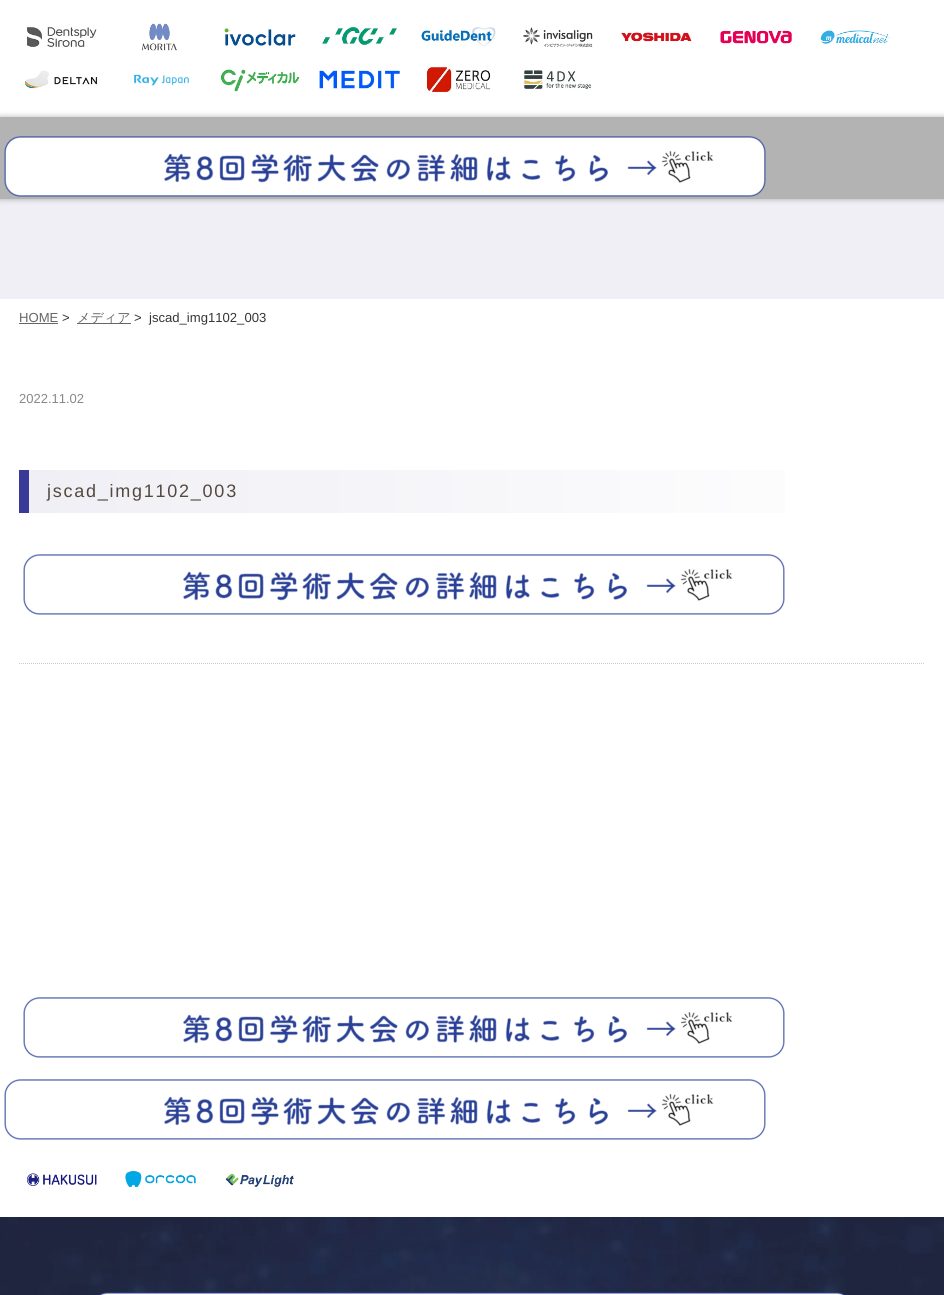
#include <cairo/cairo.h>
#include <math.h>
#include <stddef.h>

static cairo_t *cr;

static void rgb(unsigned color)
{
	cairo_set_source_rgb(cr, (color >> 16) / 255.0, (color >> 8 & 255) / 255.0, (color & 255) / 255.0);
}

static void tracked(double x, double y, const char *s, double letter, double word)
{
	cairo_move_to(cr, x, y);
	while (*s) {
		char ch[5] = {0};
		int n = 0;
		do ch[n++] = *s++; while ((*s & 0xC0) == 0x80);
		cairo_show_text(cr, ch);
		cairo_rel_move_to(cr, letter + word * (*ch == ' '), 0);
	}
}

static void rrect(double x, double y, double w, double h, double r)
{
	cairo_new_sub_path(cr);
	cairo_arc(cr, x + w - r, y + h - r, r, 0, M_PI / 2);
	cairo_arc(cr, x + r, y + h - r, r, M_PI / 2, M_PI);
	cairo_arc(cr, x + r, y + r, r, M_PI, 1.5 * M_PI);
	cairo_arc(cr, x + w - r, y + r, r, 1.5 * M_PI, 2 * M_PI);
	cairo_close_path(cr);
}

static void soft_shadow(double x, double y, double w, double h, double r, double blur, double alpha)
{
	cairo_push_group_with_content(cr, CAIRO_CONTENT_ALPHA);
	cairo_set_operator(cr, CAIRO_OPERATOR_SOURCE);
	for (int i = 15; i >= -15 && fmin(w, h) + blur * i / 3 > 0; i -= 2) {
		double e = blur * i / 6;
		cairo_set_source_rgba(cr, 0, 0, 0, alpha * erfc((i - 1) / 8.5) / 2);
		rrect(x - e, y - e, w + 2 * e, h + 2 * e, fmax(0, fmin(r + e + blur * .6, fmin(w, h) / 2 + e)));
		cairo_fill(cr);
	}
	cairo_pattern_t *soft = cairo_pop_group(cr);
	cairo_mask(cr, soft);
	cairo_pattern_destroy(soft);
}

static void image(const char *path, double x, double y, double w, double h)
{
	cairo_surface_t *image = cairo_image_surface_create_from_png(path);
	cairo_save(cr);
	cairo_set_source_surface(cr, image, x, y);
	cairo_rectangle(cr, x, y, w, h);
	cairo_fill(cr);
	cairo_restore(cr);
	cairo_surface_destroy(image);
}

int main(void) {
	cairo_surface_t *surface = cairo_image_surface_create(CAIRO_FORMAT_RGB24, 944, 1295);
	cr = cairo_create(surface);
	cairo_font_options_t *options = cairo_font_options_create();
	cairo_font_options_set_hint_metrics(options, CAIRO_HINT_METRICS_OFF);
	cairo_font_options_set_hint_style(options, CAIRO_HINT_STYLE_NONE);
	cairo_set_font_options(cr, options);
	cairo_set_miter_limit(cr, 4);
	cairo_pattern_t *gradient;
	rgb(0xffffff);
	cairo_paint(cr);
	image("img/1.png", 27, 27, 70, 20);
	image("img/2.png", 142, 23, 35, 28);
	image("img/3.png", 224, 28, 72, 19);
	image("img/4.png", 322, 27, 75, 19);
	image("img/5.png", 421, 27, 75, 20);
	image("img/6.png", 523, 27, 70, 20);
	image("img/7.png", 621, 32, 71, 10);
	image("img/8.png", 720, 30, 72, 14);
	image("img/9.png", 819, 30, 72, 15);
	image("img/10.png", 23, 70, 75, 19);
	image("img/11.png", 133, 74, 56, 13);
	image("img/12.png", 220, 69, 80, 23);
	image("img/13.png", 319, 70, 81, 20);
	image("img/14.png", 426, 66, 65, 28);
	image("img/15.png", 523, 70, 69, 19);
	rgb(0xefeff5);
	cairo_rectangle(cr, 0, 199, 944, 100);
	cairo_fill(cr);
	rgb(0x000000);
	soft_shadow(0, 117, 944, 82, 0, 3, 0.3);
	rgb(0xb3b3b3);
	cairo_rectangle(cr, 0, 117, 944, 82);
	cairo_fill(cr);
	image("img/16.png", 4, 136, 762, 61);
	rgb(0x666666);
	cairo_rectangle(cr, 19, 323, 39, 1);
	cairo_fill(cr);
	cairo_rectangle(cr, 77, 323, 54, 1);
	cairo_fill(cr);
	cairo_new_path(cr);
	cairo_move_to(cr, 19, 663.5);
	cairo_line_to(cr, 925, 663.5);
	rgb(0xcccccc);
	cairo_set_line_width(cr, 1);
	cairo_set_dash(cr, (double[]){1, 1}, 2, 0);
	cairo_stroke(cr);
	gradient = cairo_pattern_create_linear(29, 492, 925, 492);
	cairo_pattern_add_color_stop_rgba(gradient, 0, 0.937, 0.937, 0.961, 1);
	cairo_pattern_add_color_stop_rgba(gradient, 1, 1, 1, 1, 1);
	cairo_set_source(cr, gradient);
	cairo_pattern_destroy(gradient);
	cairo_rectangle(cr, 29, 470, 756, 43);
	cairo_fill(cr);
	rgb(0x393997);
	cairo_rectangle(cr, 19, 470, 10, 43);
	cairo_fill(cr);
	image("img/17.png", 23, 554, 762, 61);
	image("img/17.png", 23, 997, 762, 61);
	image("img/17.png", 4, 1079, 762, 61);
	image("img/18.png", 27, 1173, 70, 13);
	image("img/19.png", 124, 1170, 73, 18);
	image("img/20.png", 225, 1173, 69, 14);
	image("img/21.png", 0, 1217, 944, 78);
	image("img/22.png", 98, 1292, 748, 3);
	cairo_select_font_face(cr, "Liberation Sans", CAIRO_FONT_SLANT_NORMAL, CAIRO_FONT_WEIGHT_NORMAL);
	cairo_set_font_size(cr, 13.1);
	rgb(0x666666);
	cairo_move_to(cr, 19, 322);
	cairo_show_text(cr, "HOME");
	rgb(0x353535);
	cairo_move_to(cr, 62, 322);
	cairo_show_text(cr, ">");
	cairo_select_font_face(cr, "WenQuanYi Zen Hei Medium", CAIRO_FONT_SLANT_NORMAL, CAIRO_FONT_WEIGHT_NORMAL);
	rgb(0x666666);
	cairo_move_to(cr, 77, 322);
	cairo_show_text(cr, "メディア");
	cairo_select_font_face(cr, "Liberation Sans", CAIRO_FONT_SLANT_NORMAL, CAIRO_FONT_WEIGHT_NORMAL);
	rgb(0x353535);
	cairo_move_to(cr, 134, 322);
	cairo_show_text(cr, ">");
	cairo_move_to(cr, 149, 322);
	cairo_show_text(cr, "jscad_img1102_003");
	cairo_set_font_size(cr, 13);
	rgb(0x888888);
	cairo_move_to(cr, 19, 403);
	cairo_show_text(cr, "2022.11.02");
	cairo_set_font_size(cr, 18);
	rgb(0x54493e);
	tracked(47, 497, "jscad_img1102_003", 1.75, 0);
	cairo_surface_write_to_png(surface, "page.png");
	cairo_font_options_destroy(options);
	cairo_destroy(cr);
	cairo_surface_destroy(surface);
	return 0;
}
